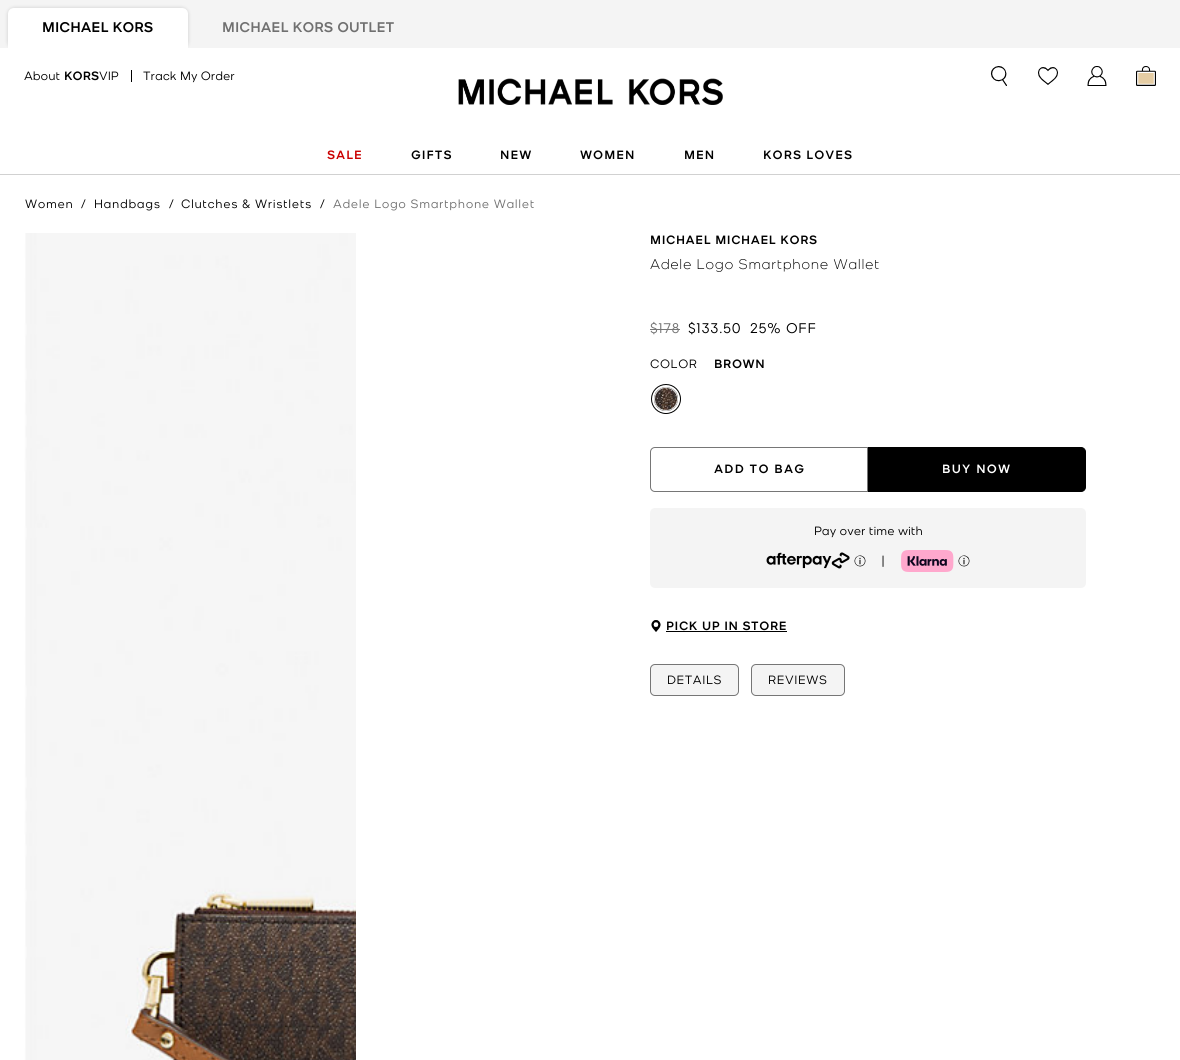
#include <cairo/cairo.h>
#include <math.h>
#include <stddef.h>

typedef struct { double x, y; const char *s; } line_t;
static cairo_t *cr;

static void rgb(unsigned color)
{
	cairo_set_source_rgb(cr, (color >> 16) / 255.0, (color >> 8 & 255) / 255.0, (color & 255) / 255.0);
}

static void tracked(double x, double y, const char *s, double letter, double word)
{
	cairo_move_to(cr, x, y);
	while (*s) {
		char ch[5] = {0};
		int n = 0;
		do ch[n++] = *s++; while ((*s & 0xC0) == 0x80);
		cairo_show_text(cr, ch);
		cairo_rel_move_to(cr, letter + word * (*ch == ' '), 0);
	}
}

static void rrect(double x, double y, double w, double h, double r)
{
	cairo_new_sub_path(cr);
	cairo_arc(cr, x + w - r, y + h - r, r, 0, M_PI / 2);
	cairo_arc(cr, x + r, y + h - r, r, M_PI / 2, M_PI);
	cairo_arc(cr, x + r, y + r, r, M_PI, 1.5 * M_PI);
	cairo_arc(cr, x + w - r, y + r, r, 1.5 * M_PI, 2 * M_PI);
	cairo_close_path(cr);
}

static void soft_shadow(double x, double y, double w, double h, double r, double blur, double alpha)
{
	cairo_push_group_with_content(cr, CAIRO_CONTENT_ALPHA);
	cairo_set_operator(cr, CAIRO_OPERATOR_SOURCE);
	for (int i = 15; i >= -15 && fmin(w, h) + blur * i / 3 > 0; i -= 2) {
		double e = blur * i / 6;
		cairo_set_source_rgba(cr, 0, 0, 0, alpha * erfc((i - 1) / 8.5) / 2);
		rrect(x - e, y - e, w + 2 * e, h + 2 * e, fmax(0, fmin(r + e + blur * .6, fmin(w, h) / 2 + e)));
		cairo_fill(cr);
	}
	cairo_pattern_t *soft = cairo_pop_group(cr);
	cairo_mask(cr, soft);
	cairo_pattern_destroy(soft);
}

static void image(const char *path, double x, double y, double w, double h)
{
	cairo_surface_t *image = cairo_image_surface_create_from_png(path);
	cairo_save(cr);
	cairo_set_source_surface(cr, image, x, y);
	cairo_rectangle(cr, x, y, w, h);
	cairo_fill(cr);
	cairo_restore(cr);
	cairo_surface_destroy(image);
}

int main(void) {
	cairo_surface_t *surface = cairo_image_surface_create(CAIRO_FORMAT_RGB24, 1180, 1060);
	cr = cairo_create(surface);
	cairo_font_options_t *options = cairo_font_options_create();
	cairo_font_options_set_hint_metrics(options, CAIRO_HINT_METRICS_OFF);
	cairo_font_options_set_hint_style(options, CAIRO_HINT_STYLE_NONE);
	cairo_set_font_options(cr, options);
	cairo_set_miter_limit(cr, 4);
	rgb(0xffffff);
	cairo_paint(cr);
	rgb(0xd1d1d1);
	cairo_rectangle(cr, 0, 174, 1180, 1);
	cairo_fill(cr);
	rgb(0xf4f4f4);
	cairo_rectangle(cr, 0, 0, 1180, 48);
	cairo_fill(cr);
	cairo_save(cr);
	cairo_rectangle(cr, 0, 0, 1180, 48);
	cairo_clip(cr);
	rgb(0x000000);
	soft_shadow(8, 8, 180, 40, 6, 2, 0.16);
	cairo_restore(cr);
	rgb(0xffffff);
	cairo_new_path(cr);
	cairo_move_to(cr, 14, 8);
	cairo_line_to(cr, 182, 8);
	cairo_curve_to(cr, 185.5, 8, 188, 10.5, 188, 14);
	cairo_line_to(cr, 188, 48);
	cairo_line_to(cr, 8, 48);
	cairo_line_to(cr, 8, 14);
	cairo_curve_to(cr, 8, 10.5, 10.5, 8, 14, 8);
	cairo_close_path(cr);
	cairo_fill(cr);
	rgb(0x000000);
	cairo_rectangle(cr, 131, 70, 1, 12);
	cairo_fill(cr);
	image("img/1.png", 458, 78, 265, 27);
	image("img/2.png", 990, 66, 17, 20);
	image("img/3.png", 1038, 67, 20, 18);
	image("img/4.png", 1087, 66, 20, 20);
	image("img/5.png", 1136, 66, 20, 20);
	image("img/6.png", 24, 233, 332, 827);
	rgb(0x767676);
	cairo_rectangle(cr, 650, 329, 30, 1);
	cairo_fill(cr);
	image("img/7.png", 654, 387, 24, 24);
	cairo_arc(cr, 666, 399, 11.5, 0, 2 * M_PI);
	rgb(0xd9d9d9);
	cairo_set_line_width(cr, 1);
	cairo_stroke(cr);
	cairo_arc(cr, 666, 399, 14.5, 0, 2 * M_PI);
	rgb(0x000000);
	cairo_stroke(cr);
	cairo_new_path(cr);
	cairo_move_to(cr, 655, 447.5);
	cairo_line_to(cr, 867.5, 447.5);
	cairo_line_to(cr, 867.5, 491.5);
	cairo_line_to(cr, 655, 491.5);
	cairo_curve_to(cr, 652.5, 491.5, 650.5, 489.5, 650.5, 487);
	cairo_line_to(cr, 650.5, 452);
	cairo_curve_to(cr, 650.5, 449.5, 652.5, 447.5, 655, 447.5);
	cairo_close_path(cr);
	rgb(0x767676);
	cairo_stroke(cr);
	rgb(0x000000);
	cairo_new_path(cr);
	cairo_move_to(cr, 868.5, 447.5);
	cairo_line_to(cr, 1081, 447.5);
	cairo_curve_to(cr, 1083.5, 447.5, 1085.5, 449.5, 1085.5, 452);
	cairo_line_to(cr, 1085.5, 487);
	cairo_curve_to(cr, 1085.5, 489.5, 1083.5, 491.5, 1081, 491.5);
	cairo_line_to(cr, 868.5, 491.5);
	cairo_close_path(cr);
	cairo_fill_preserve(cr);
	cairo_stroke(cr);
	rgb(0xf4f4f4);
	rrect(650, 508, 436, 80, 5);
	cairo_fill(cr);
	image("img/8.png", 766, 552, 84, 17);
	image("img/9.png", 854, 555, 12, 12);
	image("img/10.png", 901, 550, 53, 22);
	image("img/9.png", 958, 555, 12, 12);
	image("img/11.png", 651, 620, 10, 12);
	rgb(0x000000);
	cairo_rectangle(cr, 666, 631, 121, 1);
	cairo_fill(cr);
	rgb(0xf4f4f4);
	rrect(650.5, 664.5, 88, 31, 4.5);
	cairo_fill_preserve(cr);
	rgb(0x767676);
	cairo_stroke(cr);
	rgb(0xf4f4f4);
	rrect(751.5, 664.5, 93, 31, 4.5);
	cairo_fill_preserve(cr);
	rgb(0x767676);
	cairo_stroke(cr);
	cairo_select_font_face(cr, "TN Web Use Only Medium", CAIRO_FONT_SLANT_NORMAL, CAIRO_FONT_WEIGHT_NORMAL);
	cairo_set_font_size(cr, 14);
	rgb(0x000000);
	cairo_move_to(cr, 42, 32);
	cairo_show_text(cr, "MICHAEL KORS");
	rgb(0x707070);
	cairo_move_to(cr, 222, 32);
	cairo_show_text(cr, "MICHAEL KORS OUTLET");
	cairo_select_font_face(cr, "TN Web Use Only Light", CAIRO_FONT_SLANT_NORMAL, CAIRO_FONT_WEIGHT_NORMAL);
	cairo_set_font_size(cr, 12);
	rgb(0x000000);
	cairo_move_to(cr, 24, 80);
	cairo_show_text(cr, "About");
	cairo_select_font_face(cr, "TN Web Use Only Medium", CAIRO_FONT_SLANT_NORMAL, CAIRO_FONT_WEIGHT_NORMAL);
	cairo_move_to(cr, 64, 80);
	cairo_show_text(cr, "KORS");
	cairo_select_font_face(cr, "TN Web Use Only Light", CAIRO_FONT_SLANT_NORMAL, CAIRO_FONT_WEIGHT_NORMAL);
	cairo_move_to(cr, 99, 80);
	cairo_show_text(cr, "VIP");
	cairo_move_to(cr, 143, 80);
	cairo_show_text(cr, "Track My Order");
	cairo_select_font_face(cr, "TN Web Use Only Medium", CAIRO_FONT_SLANT_NORMAL, CAIRO_FONT_WEIGHT_NORMAL);
	rgb(0xca0000);
	tracked(327, 159, "SALE", 1, 0);
	rgb(0x000000);
	{
		static const line_t items[] = {
			{411, 159, "GIFTS"},
			{500, 159, "NEW"},
			{580, 159, "WOMEN"},
			{684, 159, "MEN"},
			{763, 159, "KORS LOVES"},
		};
		for (size_t i = 0; i < sizeof items / sizeof *items; i++) {
			tracked(items[i].x, items[i].y, items[i].s, 1, 0);
		}
	}
	cairo_select_font_face(cr, "TN Web Use Only Light", CAIRO_FONT_SLANT_NORMAL, CAIRO_FONT_WEIGHT_NORMAL);
	{
		static const line_t items[] = {
			{25, 208, "Women"},
			{81, 208, "/"},
			{94, 208, "Handbags"},
			{169, 208, "/"},
			{181, 208, "Clutches & Wristlets"},
			{320, 208, "/"},
		};
		for (size_t i = 0; i < sizeof items / sizeof *items; i++) {
			tracked(items[i].x, items[i].y, items[i].s, 0.6, 0);
		}
	}
	rgb(0x707070);
	tracked(333, 208, "Adele Logo Smartphone Wallet", 0.6, 0);
	cairo_select_font_face(cr, "TN Web Use Only Medium", CAIRO_FONT_SLANT_NORMAL, CAIRO_FONT_WEIGHT_NORMAL);
	rgb(0x000000);
	tracked(650, 244, "MICHAEL MICHAEL KORS", 0.6, 0);
	cairo_select_font_face(cr, "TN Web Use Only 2 Light", CAIRO_FONT_SLANT_NORMAL, CAIRO_FONT_WEIGHT_NORMAL);
	cairo_set_font_size(cr, 14);
	tracked(650, 269, "Adele Logo Smartphone Wallet", 0.6, 0);
	cairo_select_font_face(cr, "TN Web Use Only Light", CAIRO_FONT_SLANT_NORMAL, CAIRO_FONT_WEIGHT_NORMAL);
	rgb(0x767676);
	tracked(650, 333, "$178", 0.75, 0);
	rgb(0x000000);
	tracked(688, 333, "$133.50", 0.75, 0);
	tracked(750, 333, "25% OFF", 0.75, 0);
	cairo_set_font_size(cr, 12);
	tracked(650, 368, "COLOR", 0.6, 0);
	cairo_select_font_face(cr, "TN Web Use Only Medium", CAIRO_FONT_SLANT_NORMAL, CAIRO_FONT_WEIGHT_NORMAL);
	tracked(714, 368, "BROWN", 0.6, 0);
	tracked(714, 473, "ADD TO BAG", 1.25, 0);
	rgb(0xffffff);
	tracked(942, 473, "BUY NOW", 1.25, 0);
	cairo_select_font_face(cr, "TN Web Use Only Light", CAIRO_FONT_SLANT_NORMAL, CAIRO_FONT_WEIGHT_NORMAL);
	rgb(0x000000);
	cairo_move_to(cr, 814, 535);
	cairo_show_text(cr, "Pay over time with");
	cairo_move_to(cr, 882, 565);
	cairo_show_text(cr, "|");
	cairo_select_font_face(cr, "TN Web Use Only Medium", CAIRO_FONT_SLANT_NORMAL, CAIRO_FONT_WEIGHT_NORMAL);
	tracked(666, 630, "PICK UP IN STORE", 0.6, 0);
	cairo_select_font_face(cr, "TN Web Use Only Light", CAIRO_FONT_SLANT_NORMAL, CAIRO_FONT_WEIGHT_NORMAL);
	tracked(667, 684, "DETAILS", 0.6, 0);
	tracked(768, 684, "REVIEWS", 0.6, 0);
	cairo_surface_write_to_png(surface, "page.png");
	cairo_font_options_destroy(options);
	cairo_destroy(cr);
	cairo_surface_destroy(surface);
	return 0;
}
